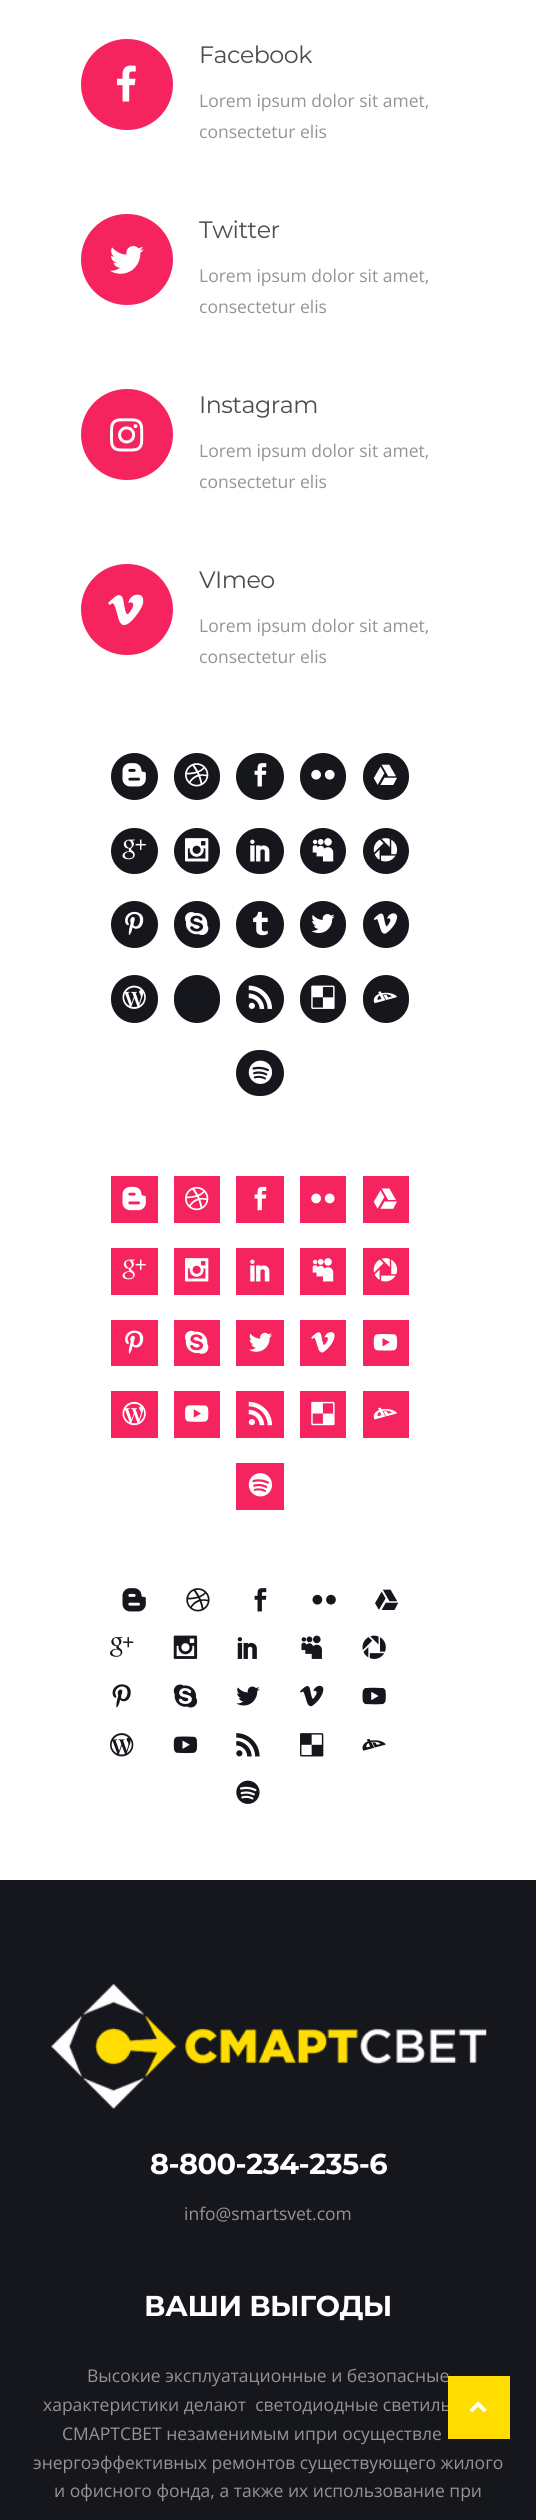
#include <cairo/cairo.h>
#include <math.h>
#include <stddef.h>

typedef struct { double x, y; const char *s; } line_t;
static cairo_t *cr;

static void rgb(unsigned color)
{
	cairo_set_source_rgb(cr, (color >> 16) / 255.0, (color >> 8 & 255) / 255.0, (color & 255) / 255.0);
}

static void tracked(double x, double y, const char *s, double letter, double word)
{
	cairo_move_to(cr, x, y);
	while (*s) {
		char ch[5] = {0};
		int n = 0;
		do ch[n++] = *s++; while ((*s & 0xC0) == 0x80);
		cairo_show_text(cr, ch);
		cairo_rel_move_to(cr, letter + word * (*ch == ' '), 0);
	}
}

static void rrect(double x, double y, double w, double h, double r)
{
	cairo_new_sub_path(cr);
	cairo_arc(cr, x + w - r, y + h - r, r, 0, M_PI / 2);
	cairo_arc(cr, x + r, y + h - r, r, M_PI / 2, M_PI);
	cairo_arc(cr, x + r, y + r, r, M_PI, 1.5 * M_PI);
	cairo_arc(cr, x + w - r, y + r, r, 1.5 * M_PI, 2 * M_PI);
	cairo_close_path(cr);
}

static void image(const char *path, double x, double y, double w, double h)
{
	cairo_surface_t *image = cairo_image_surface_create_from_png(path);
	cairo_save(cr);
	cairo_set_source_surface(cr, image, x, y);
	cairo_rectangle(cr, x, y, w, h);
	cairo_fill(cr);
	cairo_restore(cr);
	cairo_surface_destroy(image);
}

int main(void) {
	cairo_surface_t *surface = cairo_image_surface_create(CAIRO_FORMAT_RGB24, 536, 2520);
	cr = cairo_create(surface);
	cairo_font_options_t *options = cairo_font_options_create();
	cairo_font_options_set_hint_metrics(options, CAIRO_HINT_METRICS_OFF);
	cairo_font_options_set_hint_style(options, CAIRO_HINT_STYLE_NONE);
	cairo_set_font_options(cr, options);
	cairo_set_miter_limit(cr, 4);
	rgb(0xffffff);
	cairo_paint(cr);
	rgb(0xf5245f);
	rrect(81, 39, 92, 91, 45.5);
	cairo_fill(cr);
	image("img/1.png", 117, 65, 19, 37);
	rrect(81, 214, 92, 91, 45.5);
	cairo_fill(cr);
	image("img/2.png", 109, 246, 35, 28);
	rrect(81, 389, 92, 91, 45.5);
	cairo_fill(cr);
	image("img/3.png", 110, 418, 34, 34);
	rrect(81, 564, 92, 91, 45.5);
	cairo_fill(cr);
	image("img/4.png", 108, 594, 36, 32);
	rgb(0x16171d);
	cairo_arc(cr, 134.5, 776.5, 23.5, 0, 2 * M_PI);
	cairo_fill(cr);
	image("img/5.png", 122, 763, 24, 24);
	rrect(174, 753, 46, 47, 23);
	cairo_fill(cr);
	image("img/6.png", 185, 763, 24, 24);
	rrect(236, 753, 48, 47, 23.5);
	cairo_fill(cr);
	image("img/7.png", 254, 763, 13, 24);
	rrect(300, 753, 46, 47, 23);
	cairo_fill(cr);
	image("img/8.png", 311, 769, 24, 11);
	rrect(363, 753, 46, 47, 23);
	cairo_fill(cr);
	image("img/9.png", 373, 764, 24, 21);
	rrect(111, 828, 47, 46, 23);
	cairo_fill(cr);
	image("img/10.png", 122, 839, 24, 21);
	cairo_arc(cr, 197, 851, 23, 0, 2 * M_PI);
	cairo_fill(cr);
	image("img/11.png", 185, 838, 24, 24);
	rrect(236, 828, 48, 46, 23);
	cairo_fill(cr);
	image("img/12.png", 250, 839, 20, 23);
	cairo_arc(cr, 323, 851, 23, 0, 2 * M_PI);
	cairo_fill(cr);
	image("img/13.png", 312, 838, 22, 24);
	cairo_arc(cr, 386, 851, 23, 0, 2 * M_PI);
	cairo_fill(cr);
	image("img/14.png", 373, 838, 25, 24);
	cairo_arc(cr, 134.5, 924.5, 23.5, 0, 2 * M_PI);
	cairo_fill(cr);
	image("img/15.png", 125, 911, 19, 24);
	rrect(174, 901, 46, 47, 23);
	cairo_fill(cr);
	image("img/16.png", 185, 912, 24, 23);
	rrect(236, 901, 48, 47, 23.5);
	cairo_fill(cr);
	image("img/17.png", 253, 911, 15, 25);
	rrect(300, 901, 46, 47, 23);
	cairo_fill(cr);
	image("img/18.png", 311, 914, 24, 19);
	rrect(363, 901, 46, 47, 23);
	cairo_fill(cr);
	image("img/19.png", 373, 913, 25, 21);
	rrect(111, 975, 47, 48, 23.5);
	cairo_fill(cr);
	image("img/20.png", 122, 985, 24, 24);
	rrect(174, 975, 46, 48, 23);
	cairo_fill(cr);
	cairo_arc(cr, 260, 999, 24, 0, 2 * M_PI);
	cairo_fill(cr);
	image("img/21.png", 248, 985, 25, 24);
	rrect(300, 975, 46, 48, 23);
	cairo_fill(cr);
	image("img/22.png", 311, 985, 24, 24);
	rrect(363, 975, 46, 48, 23);
	cairo_fill(cr);
	image("img/23.png", 373, 991, 24, 13);
	rrect(236, 1050, 48, 46, 23);
	cairo_fill(cr);
	image("img/24.png", 248, 1060, 25, 24);
	rgb(0xf5245f);
	cairo_rectangle(cr, 111, 1176, 47, 47);
	cairo_fill(cr);
	image("img/25.png", 122, 1186, 24, 25);
	cairo_rectangle(cr, 174, 1176, 46, 47);
	cairo_fill(cr);
	image("img/26.png", 185, 1186, 24, 25);
	cairo_rectangle(cr, 236, 1176, 48, 47);
	cairo_fill(cr);
	image("img/27.png", 254, 1186, 13, 25);
	cairo_rectangle(cr, 300, 1176, 46, 47);
	cairo_fill(cr);
	image("img/28.png", 311, 1193, 24, 11);
	cairo_rectangle(cr, 363, 1176, 46, 47);
	cairo_fill(cr);
	image("img/29.png", 373, 1188, 24, 21);
	cairo_rectangle(cr, 111, 1248, 47, 47);
	cairo_fill(cr);
	image("img/30.png", 122, 1259, 24, 21);
	cairo_rectangle(cr, 174, 1248, 46, 47);
	cairo_fill(cr);
	image("img/31.png", 185, 1258, 24, 24);
	cairo_rectangle(cr, 236, 1248, 48, 47);
	cairo_fill(cr);
	image("img/32.png", 250, 1259, 20, 23);
	cairo_rectangle(cr, 300, 1248, 46, 47);
	cairo_fill(cr);
	image("img/33.png", 312, 1258, 22, 24);
	cairo_rectangle(cr, 363, 1248, 46, 47);
	cairo_fill(cr);
	image("img/34.png", 373, 1258, 25, 24);
	cairo_rectangle(cr, 111, 1320, 47, 46);
	cairo_fill(cr);
	image("img/35.png", 125, 1330, 19, 24);
	cairo_rectangle(cr, 174, 1320, 46, 46);
	cairo_fill(cr);
	image("img/36.png", 185, 1330, 24, 24);
	cairo_rectangle(cr, 236, 1320, 48, 46);
	cairo_fill(cr);
	image("img/37.png", 249, 1332, 23, 20);
	cairo_rectangle(cr, 300, 1320, 46, 46);
	cairo_fill(cr);
	image("img/38.png", 311, 1332, 24, 21);
	cairo_rectangle(cr, 363, 1320, 46, 46);
	cairo_fill(cr);
	image("img/39.png", 373, 1334, 25, 17);
	cairo_rectangle(cr, 111, 1391, 47, 47);
	cairo_fill(cr);
	image("img/40.png", 122, 1401, 24, 25);
	cairo_rectangle(cr, 174, 1391, 46, 47);
	cairo_fill(cr);
	image("img/41.png", 185, 1405, 24, 17);
	cairo_rectangle(cr, 236, 1391, 48, 47);
	cairo_fill(cr);
	image("img/42.png", 248, 1401, 25, 25);
	cairo_rectangle(cr, 300, 1391, 46, 47);
	cairo_fill(cr);
	image("img/43.png", 311, 1401, 24, 25);
	cairo_rectangle(cr, 363, 1391, 46, 47);
	cairo_fill(cr);
	image("img/44.png", 373, 1407, 24, 13);
	cairo_rectangle(cr, 236, 1463, 48, 47);
	cairo_fill(cr);
	image("img/45.png", 248, 1473, 25, 24);
	image("img/46.png", 122, 1588, 24, 24);
	image("img/47.png", 186, 1588, 24, 24);
	image("img/48.png", 254, 1588, 13, 24);
	image("img/49.png", 312, 1594, 24, 11);
	image("img/50.png", 375, 1589, 24, 21);
	image("img/51.png", 110, 1637, 24, 20);
	image("img/52.png", 173, 1635, 25, 24);
	image("img/53.png", 237, 1637, 20, 22);
	image("img/54.png", 301, 1635, 21, 24);
	image("img/55.png", 362, 1635, 24, 24);
	image("img/56.png", 112, 1684, 19, 24);
	image("img/57.png", 173, 1684, 25, 24);
	image("img/58.png", 236, 1686, 24, 20);
	image("img/59.png", 300, 1685, 24, 22);
	image("img/60.png", 362, 1687, 24, 18);
	image("img/61.png", 110, 1733, 24, 24);
	image("img/62.png", 173, 1736, 25, 18);
	image("img/63.png", 236, 1733, 24, 24);
	image("img/64.png", 300, 1733, 24, 24);
	image("img/65.png", 362, 1738, 24, 13);
	image("img/66.png", 236, 1780, 24, 24);
	rgb(0x16171d);
	cairo_rectangle(cr, 0, 1880, 536, 640);
	cairo_fill(cr);
	image("img/67.png", 51, 1984, 436, 125);
	cairo_select_font_face(cr, "Montserrat", CAIRO_FONT_SLANT_NORMAL, CAIRO_FONT_WEIGHT_NORMAL);
	cairo_set_font_size(cr, 23.75);
	rgb(0x4d4d4d);
	tracked(199, 63, "Facebook", -0.5, 0);
	cairo_select_font_face(cr, "Open Sans", CAIRO_FONT_SLANT_NORMAL, CAIRO_FONT_WEIGHT_NORMAL);
	cairo_set_font_size(cr, 17.5);
	rgb(0x949494);
	cairo_move_to(cr, 199, 107);
	cairo_show_text(cr, "Lorem ipsum dolor sit amet,");
	cairo_move_to(cr, 199, 138);
	cairo_show_text(cr, "consectetur elis");
	cairo_select_font_face(cr, "Montserrat", CAIRO_FONT_SLANT_NORMAL, CAIRO_FONT_WEIGHT_NORMAL);
	cairo_set_font_size(cr, 23.75);
	rgb(0x4d4d4d);
	tracked(199, 238, "Twitter", -0.5, 0);
	cairo_select_font_face(cr, "Open Sans", CAIRO_FONT_SLANT_NORMAL, CAIRO_FONT_WEIGHT_NORMAL);
	cairo_set_font_size(cr, 17.5);
	rgb(0x949494);
	cairo_move_to(cr, 199, 282);
	cairo_show_text(cr, "Lorem ipsum dolor sit amet,");
	cairo_move_to(cr, 199, 313);
	cairo_show_text(cr, "consectetur elis");
	cairo_select_font_face(cr, "Montserrat", CAIRO_FONT_SLANT_NORMAL, CAIRO_FONT_WEIGHT_NORMAL);
	cairo_set_font_size(cr, 23.75);
	rgb(0x4d4d4d);
	tracked(199, 413, "Instagram", -0.5, 0);
	cairo_select_font_face(cr, "Open Sans", CAIRO_FONT_SLANT_NORMAL, CAIRO_FONT_WEIGHT_NORMAL);
	cairo_set_font_size(cr, 17.5);
	rgb(0x949494);
	cairo_move_to(cr, 199, 457);
	cairo_show_text(cr, "Lorem ipsum dolor sit amet,");
	cairo_move_to(cr, 199, 488);
	cairo_show_text(cr, "consectetur elis");
	cairo_select_font_face(cr, "Montserrat", CAIRO_FONT_SLANT_NORMAL, CAIRO_FONT_WEIGHT_NORMAL);
	cairo_set_font_size(cr, 23.75);
	rgb(0x4d4d4d);
	tracked(199, 588, "VImeo", -0.5, 0);
	cairo_select_font_face(cr, "Open Sans", CAIRO_FONT_SLANT_NORMAL, CAIRO_FONT_WEIGHT_NORMAL);
	cairo_set_font_size(cr, 17.5);
	rgb(0x949494);
	cairo_move_to(cr, 199, 632);
	cairo_show_text(cr, "Lorem ipsum dolor sit amet,");
	cairo_move_to(cr, 199, 663);
	cairo_show_text(cr, "consectetur elis");
	cairo_select_font_face(cr, "Montserrat", CAIRO_FONT_SLANT_NORMAL, CAIRO_FONT_WEIGHT_BOLD);
	cairo_set_font_size(cr, 28.75);
	rgb(0xffffff);
	tracked(150, 2174, "8-800-234-235-6", -0.5, 0);
	cairo_select_font_face(cr, "Open Sans", CAIRO_FONT_SLANT_NORMAL, CAIRO_FONT_WEIGHT_NORMAL);
	cairo_set_font_size(cr, 17.5);
	rgb(0x949494);
	cairo_move_to(cr, 184, 2220);
	cairo_show_text(cr, "info@smartsvet.com");
	cairo_select_font_face(cr, "Montserrat", CAIRO_FONT_SLANT_NORMAL, CAIRO_FONT_WEIGHT_BOLD);
	cairo_set_font_size(cr, 28.75);
	rgb(0xffffff);
	tracked(144, 2316, "ВАШИ ВЫГОДЫ", -0.5, 0);
	cairo_select_font_face(cr, "Open Sans", CAIRO_FONT_SLANT_NORMAL, CAIRO_FONT_WEIGHT_NORMAL);
	cairo_set_font_size(cr, 17.5);
	rgb(0x949494);
	{
		static const line_t items[] = {
			{87, 2382, "Высокие эксплуатационные и безопасные"},
			{43, 2411, "характеристики делают  светодиодные светиль"},
			{62, 2440, "СМАРТСВЕТ незаменимым ипри осуществле"},
			{33, 2469, "энергоэффективных ремонтов существующего жилого"},
			{54, 2497, "и офисного фонда, а также их использование при"},
		};
		for (size_t i = 0; i < sizeof items / sizeof *items; i++) {
			cairo_move_to(cr, items[i].x, items[i].y);
			cairo_show_text(cr, items[i].s);
		}
	}
	rgb(0xffdd00);
	cairo_rectangle(cr, 448, 2376, 62, 63);
	cairo_fill(cr);
	image("img/68.png", 469, 2401, 18, 12);
	cairo_surface_write_to_png(surface, "page.png");
	cairo_font_options_destroy(options);
	cairo_destroy(cr);
	cairo_surface_destroy(surface);
	return 0;
}
